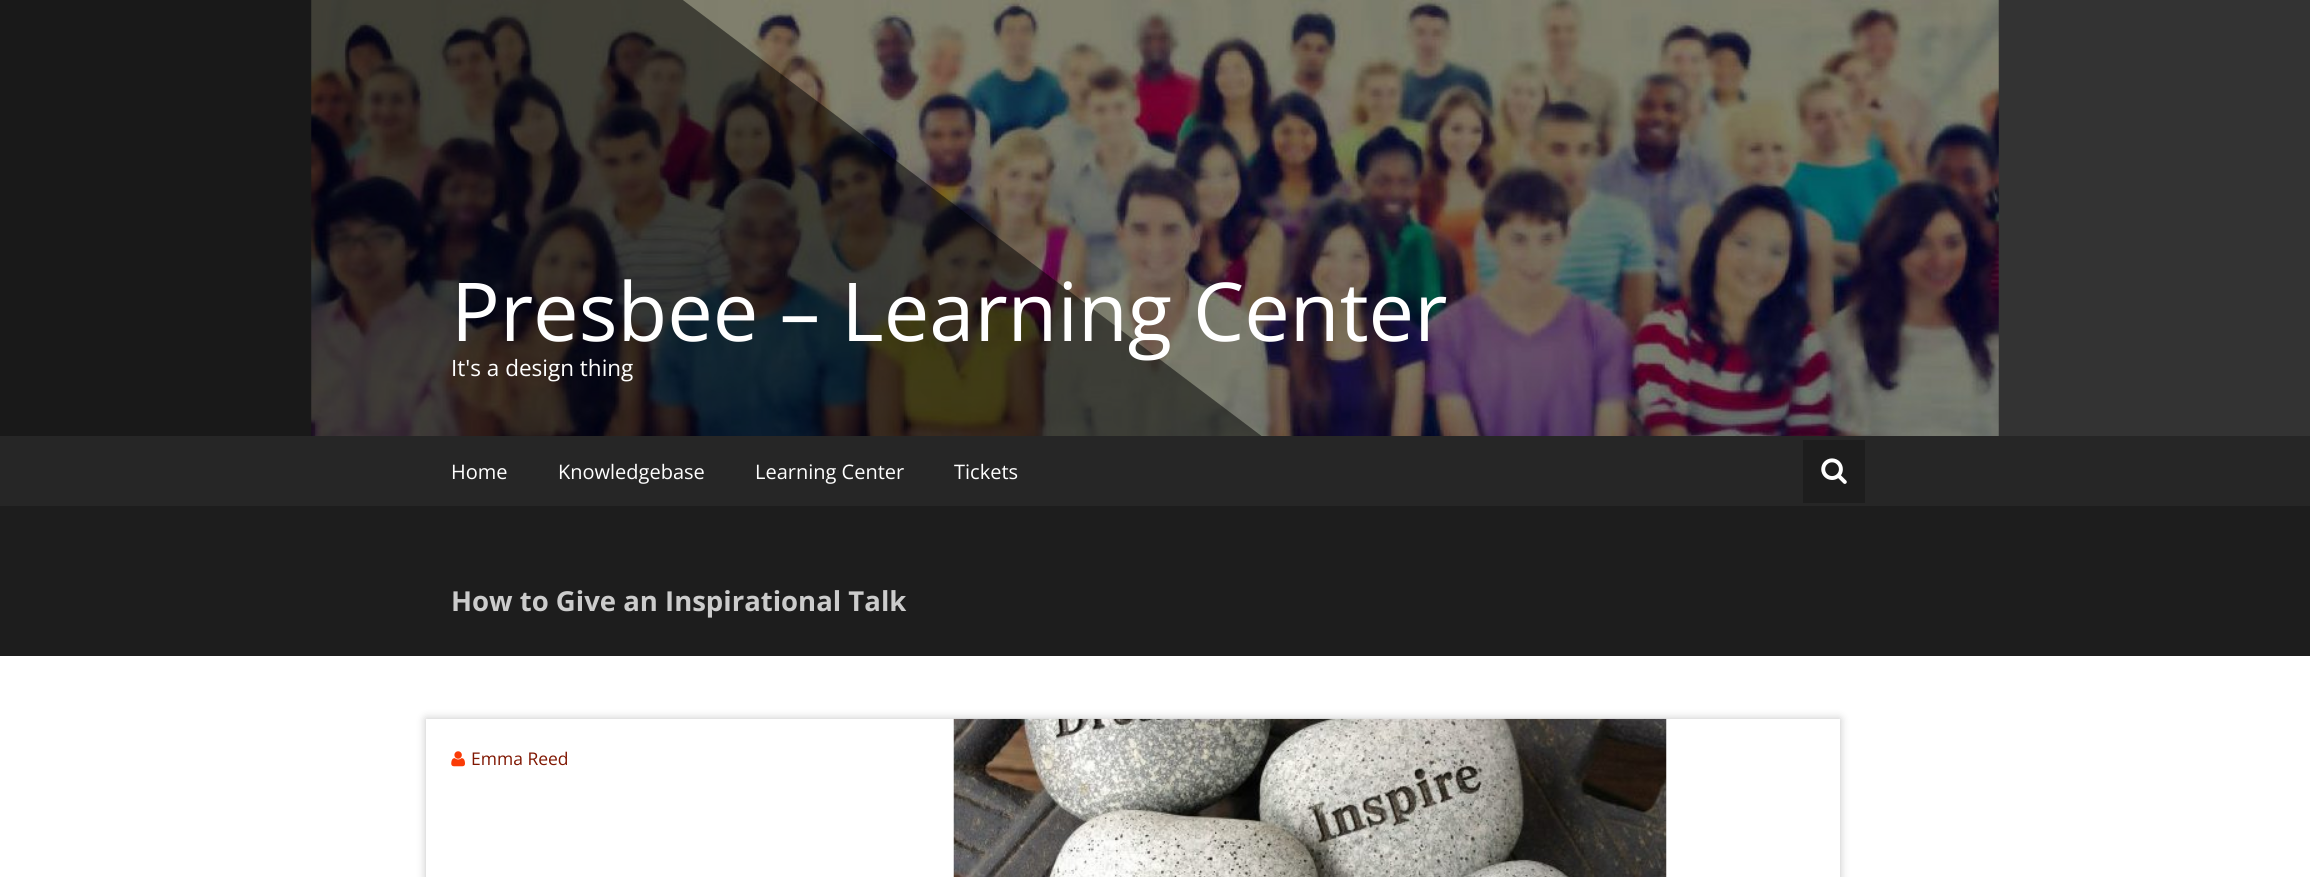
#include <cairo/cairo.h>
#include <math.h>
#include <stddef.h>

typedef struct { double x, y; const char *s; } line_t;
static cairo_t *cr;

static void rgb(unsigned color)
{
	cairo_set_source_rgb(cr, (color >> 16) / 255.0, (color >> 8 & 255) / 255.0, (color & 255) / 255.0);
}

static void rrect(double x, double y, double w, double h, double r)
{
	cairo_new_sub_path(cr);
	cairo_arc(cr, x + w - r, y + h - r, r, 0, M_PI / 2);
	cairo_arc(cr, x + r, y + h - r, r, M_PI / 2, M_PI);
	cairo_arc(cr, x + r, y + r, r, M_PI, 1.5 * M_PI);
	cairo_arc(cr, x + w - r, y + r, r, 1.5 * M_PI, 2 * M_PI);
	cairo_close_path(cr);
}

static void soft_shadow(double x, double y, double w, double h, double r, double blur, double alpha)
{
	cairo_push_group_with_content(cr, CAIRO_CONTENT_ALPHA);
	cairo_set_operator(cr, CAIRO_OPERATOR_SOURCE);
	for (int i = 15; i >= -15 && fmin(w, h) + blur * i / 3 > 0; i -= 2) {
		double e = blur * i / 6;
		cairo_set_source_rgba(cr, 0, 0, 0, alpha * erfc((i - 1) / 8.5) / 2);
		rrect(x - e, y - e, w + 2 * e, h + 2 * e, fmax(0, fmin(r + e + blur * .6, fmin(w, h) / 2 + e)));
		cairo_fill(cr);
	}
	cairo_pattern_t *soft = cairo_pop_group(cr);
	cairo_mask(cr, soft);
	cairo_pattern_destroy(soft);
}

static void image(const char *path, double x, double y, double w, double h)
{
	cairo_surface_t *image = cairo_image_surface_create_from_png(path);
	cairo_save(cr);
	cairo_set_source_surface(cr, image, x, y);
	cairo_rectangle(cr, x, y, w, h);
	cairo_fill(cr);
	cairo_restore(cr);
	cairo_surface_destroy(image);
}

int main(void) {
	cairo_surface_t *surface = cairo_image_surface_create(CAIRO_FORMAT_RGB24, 2310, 877);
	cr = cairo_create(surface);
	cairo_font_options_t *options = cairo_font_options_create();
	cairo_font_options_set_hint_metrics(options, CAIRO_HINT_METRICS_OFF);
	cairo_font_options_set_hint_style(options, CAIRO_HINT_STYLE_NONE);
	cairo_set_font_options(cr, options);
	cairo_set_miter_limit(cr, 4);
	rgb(0xffffff);
	cairo_paint(cr);
	rgb(0x333333);
	cairo_rectangle(cr, 0, 0, 2310, 436);
	cairo_fill(cr);
	image("img/1.png", 311, 0, 1688, 436);
	cairo_save(cr);
	cairo_rectangle(cr, 0, 0, 2310, 436);
	cairo_clip(cr);
	cairo_set_source_rgba(cr, 0, 0, 0, 0.5);
	cairo_new_path(cr);
	cairo_move_to(cr, -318, -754);
	cairo_line_to(cr, 1527, 636);
	cairo_line_to(cr, 775, 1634);
	cairo_line_to(cr, -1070, 244);
	cairo_close_path(cr);
	cairo_fill(cr);
	cairo_restore(cr);
	rgb(0x262626);
	cairo_rectangle(cr, 0, 436, 2310, 70);
	cairo_fill(cr);
	rgb(0x1d1d1d);
	cairo_rectangle(cr, 1803, 440, 62, 63);
	cairo_fill(cr);
	image("img/2.png", 1821, 458, 26, 26);
	cairo_rectangle(cr, 0, 506, 2310, 150);
	cairo_fill(cr);
	rgb(0xc2c2c2);
	soft_shadow(426, 719, 1414, 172, 0, 4.5, 1);
	rgb(0xffffff);
	cairo_rectangle(cr, 426, 719, 1414, 158);
	cairo_fill(cr);
	image("img/3.png", 451, 751, 14, 16);
	image("img/4.png", 953, 718, 714, 159);
	cairo_select_font_face(cr, "Open Sans", CAIRO_FONT_SLANT_NORMAL, CAIRO_FONT_WEIGHT_NORMAL);
	cairo_set_font_size(cr, 81.25);
	cairo_move_to(cr, 451, 341);
	cairo_show_text(cr, "Presbee – Learning Center");
	cairo_set_font_size(cr, 22.5);
	cairo_move_to(cr, 451, 376);
	cairo_show_text(cr, "It's a design thing");
	cairo_set_font_size(cr, 20);
	{
		static const line_t items[] = {
			{451, 479, "Home"},
			{558, 479, "Knowledgebase"},
			{755, 479, "Learning Center"},
			{954, 479, "Tickets"},
		};
		for (size_t i = 0; i < sizeof items / sizeof *items; i++) {
			cairo_move_to(cr, items[i].x, items[i].y);
			cairo_show_text(cr, items[i].s);
		}
	}
	cairo_select_font_face(cr, "Open Sans", CAIRO_FONT_SLANT_NORMAL, CAIRO_FONT_WEIGHT_BOLD);
	cairo_set_font_size(cr, 27.5);
	rgb(0xcccccc);
	cairo_move_to(cr, 451, 611);
	cairo_show_text(cr, "How to Give an Inspirational Talk");
	cairo_select_font_face(cr, "Open Sans", CAIRO_FONT_SLANT_NORMAL, CAIRO_FONT_WEIGHT_NORMAL);
	cairo_set_font_size(cr, 17.5);
	rgb(0x7f1601);
	cairo_move_to(cr, 471, 765);
	cairo_show_text(cr, "Emma Reed");
	cairo_surface_write_to_png(surface, "page.png");
	cairo_font_options_destroy(options);
	cairo_destroy(cr);
	cairo_surface_destroy(surface);
	return 0;
}
